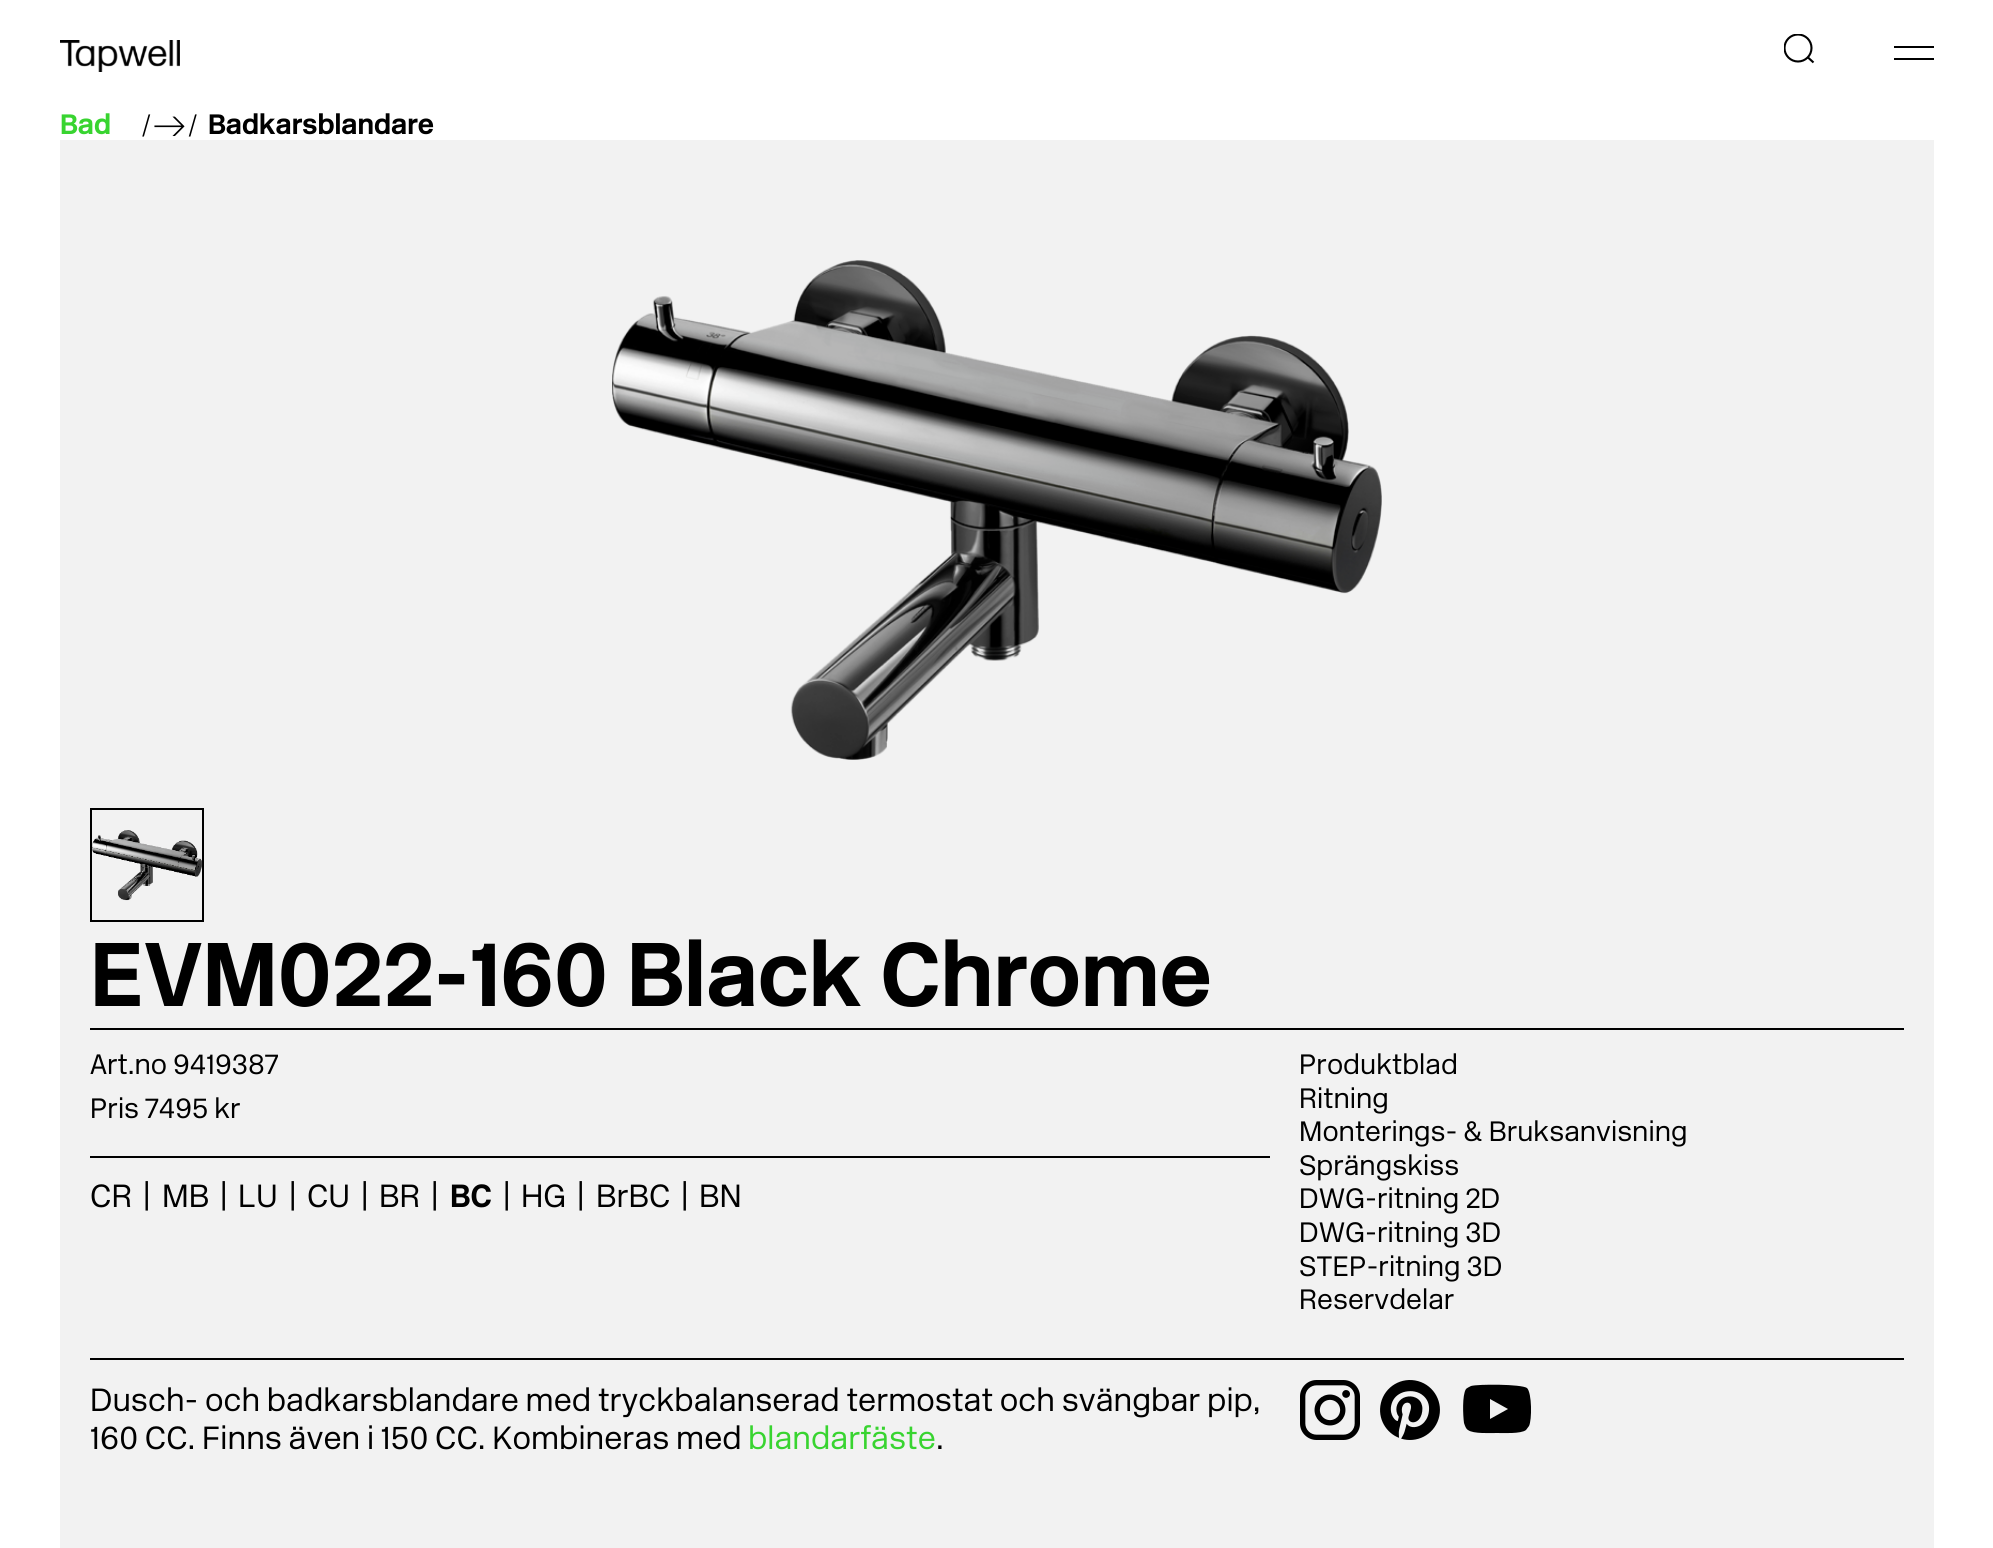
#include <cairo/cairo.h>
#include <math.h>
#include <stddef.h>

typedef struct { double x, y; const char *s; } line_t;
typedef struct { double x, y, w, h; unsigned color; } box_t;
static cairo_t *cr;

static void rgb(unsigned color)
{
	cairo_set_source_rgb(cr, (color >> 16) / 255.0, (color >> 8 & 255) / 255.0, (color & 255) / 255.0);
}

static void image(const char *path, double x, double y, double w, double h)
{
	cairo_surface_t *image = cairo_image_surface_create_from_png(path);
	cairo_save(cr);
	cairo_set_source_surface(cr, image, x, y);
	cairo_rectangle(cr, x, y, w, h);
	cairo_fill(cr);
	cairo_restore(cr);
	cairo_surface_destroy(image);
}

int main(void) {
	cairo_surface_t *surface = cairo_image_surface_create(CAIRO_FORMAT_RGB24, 1993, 1548);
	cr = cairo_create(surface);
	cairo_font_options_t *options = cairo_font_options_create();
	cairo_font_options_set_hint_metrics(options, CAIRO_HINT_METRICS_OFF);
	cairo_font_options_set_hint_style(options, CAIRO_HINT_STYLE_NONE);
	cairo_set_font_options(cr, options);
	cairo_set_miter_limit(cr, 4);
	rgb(0xffffff);
	cairo_paint(cr);
	image("img/1.png", 60, 40, 120, 32);
	cairo_save(cr);
	cairo_rectangle(cr, 1784, 34, 30, 30);
	cairo_clip(cr);
	cairo_arc(cr, 1798, 48, 13.5, 0, 2 * M_PI);
	rgb(0x000000);
	cairo_set_line_width(cr, 2.1);
	cairo_stroke(cr);
	cairo_restore(cr);
	cairo_new_path(cr);
	cairo_move_to(cr, 1808, 57.5);
	cairo_line_to(cr, 1813.5, 62.5);
	rgb(0x000000);
	cairo_set_line_width(cr, 2.1);
	cairo_stroke(cr);
	{
		static const box_t items[] = {
			{1894, 46, 40, 2, 0x000000},
			{1894, 58, 40, 2, 0x000000},
			{60, 140, 1874, 1408, 0xf2f2f2},
		};
		for (size_t i = 0; i < sizeof items / sizeof *items; i++) {
			rgb(items[i].color);
			cairo_rectangle(cr, items[i].x, items[i].y, items[i].w, items[i].h);
			cairo_fill(cr);
		}
	}
	image("img/2.png", 612, 260, 770, 500);
	cairo_rectangle(cr, 91, 809, 112, 112);
	rgb(0x000000);
	cairo_set_line_width(cr, 2);
	cairo_stroke(cr);
	image("img/3.png", 92, 830, 111, 71);
	{
		static const box_t items[] = {
			{90, 1028, 1814, 2, 0x000000},
			{90, 1156, 1180, 2, 0x000000},
			{90, 1358, 1814, 2, 0x000000},
		};
		for (size_t i = 0; i < sizeof items / sizeof *items; i++) {
			rgb(items[i].color);
			cairo_rectangle(cr, items[i].x, items[i].y, items[i].w, items[i].h);
			cairo_fill(cr);
		}
	}
	image("img/4.png", 1300, 1380, 60, 60);
	image("img/5.png", 1380, 1380, 60, 60);
	cairo_new_path(cr);
	cairo_move_to(cr, 1497, 1433);
	cairo_curve_to(cr, 1491, 1433, 1473, 1434, 1468, 1430);
	cairo_curve_to(cr, 1466, 1429, 1465, 1426, 1464, 1423);
	cairo_curve_to(cr, 1463, 1416, 1462, 1395, 1466, 1389);
	cairo_curve_to(cr, 1467, 1388, 1469, 1387, 1471, 1386);
	cairo_curve_to(cr, 1478, 1384, 1521, 1384, 1527, 1388);
	cairo_curve_to(cr, 1532, 1393, 1532, 1420, 1529, 1426);
	cairo_line_to(cr, 1526, 1430);
	cairo_curve_to(cr, 1521, 1434, 1503, 1433, 1497, 1433);
	cairo_close_path(cr);
	cairo_move_to(cr, 1508, 1409);
	cairo_line_to(cr, 1490, 1399);
	cairo_line_to(cr, 1490, 1419);
	cairo_close_path(cr);
	cairo_fill(cr);
	cairo_select_font_face(cr, "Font", CAIRO_FONT_SLANT_NORMAL, CAIRO_FONT_WEIGHT_BOLD);
	cairo_set_font_size(cr, 28);
	rgb(0x38d430);
	cairo_move_to(cr, 60, 134);
	cairo_show_text(cr, "Bad");
	cairo_select_font_face(cr, "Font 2 Light", CAIRO_FONT_SLANT_NORMAL, CAIRO_FONT_WEIGHT_NORMAL);
	rgb(0x000000);
	cairo_move_to(cr, 141, 134);
	cairo_show_text(cr, "/→/");
	cairo_select_font_face(cr, "Font", CAIRO_FONT_SLANT_NORMAL, CAIRO_FONT_WEIGHT_BOLD);
	cairo_move_to(cr, 208, 134);
	cairo_show_text(cr, "Badkarsblandare");
	cairo_set_font_size(cr, 90);
	cairo_move_to(cr, 90, 1006);
	cairo_show_text(cr, "EVM022-160 Black Chrome");
	cairo_select_font_face(cr, "Font Light", CAIRO_FONT_SLANT_NORMAL, CAIRO_FONT_WEIGHT_NORMAL);
	cairo_set_font_size(cr, 28);
	cairo_move_to(cr, 90, 1074);
	cairo_show_text(cr, "Art.no 9419387");
	cairo_move_to(cr, 90, 1118);
	cairo_show_text(cr, "Pris 7495 kr");
	cairo_set_font_size(cr, 32);
	{
		static const line_t items[] = {
			{90, 1207, "CR"},
			{142, 1207, "|"},
			{162, 1207, "MB"},
			{219, 1207, "|"},
			{238, 1207, "LU"},
			{288, 1207, "|"},
			{307, 1207, "CU"},
			{360, 1207, "|"},
			{379, 1207, "BR"},
			{430, 1207, "|"},
		};
		for (size_t i = 0; i < sizeof items / sizeof *items; i++) {
			cairo_move_to(cr, items[i].x, items[i].y);
			cairo_show_text(cr, items[i].s);
		}
	}
	cairo_select_font_face(cr, "Font", CAIRO_FONT_SLANT_NORMAL, CAIRO_FONT_WEIGHT_BOLD);
	cairo_move_to(cr, 450, 1207);
	cairo_show_text(cr, "BC");
	cairo_select_font_face(cr, "Font Light", CAIRO_FONT_SLANT_NORMAL, CAIRO_FONT_WEIGHT_NORMAL);
	{
		static const line_t items[] = {
			{502, 1207, "|"},
			{521, 1207, "HG"},
			{576, 1207, "|"},
			{596, 1207, "BrBC"},
			{680, 1207, "|"},
			{699, 1207, "BN"},
		};
		for (size_t i = 0; i < sizeof items / sizeof *items; i++) {
			cairo_move_to(cr, items[i].x, items[i].y);
			cairo_show_text(cr, items[i].s);
		}
	}
	cairo_set_font_size(cr, 28);
	{
		static const line_t items[] = {
			{1299, 1074, "Produktblad"},
			{1299, 1108, "Ritning"},
			{1299, 1141, "Monterings- & Bruksanvisning"},
			{1299, 1175, "Sprängskiss"},
			{1299, 1208, "DWG-ritning 2D"},
			{1299, 1242, "DWG-ritning 3D"},
			{1299, 1276, "STEP-ritning 3D"},
			{1299, 1309, "Reservdelar"},
		};
		for (size_t i = 0; i < sizeof items / sizeof *items; i++) {
			cairo_move_to(cr, items[i].x, items[i].y);
			cairo_show_text(cr, items[i].s);
		}
	}
	cairo_set_font_size(cr, 32);
	cairo_move_to(cr, 90, 1411);
	cairo_show_text(cr, "Dusch- och badkarsblandare med tryckbalanserad termostat och svängbar pip,");
	cairo_move_to(cr, 90, 1449);
	cairo_show_text(cr, "160 CC. Finns även i 150 CC. Kombineras med");
	rgb(0x38d430);
	cairo_move_to(cr, 748, 1449);
	cairo_show_text(cr, "blandarfäste");
	rgb(0x000000);
	cairo_move_to(cr, 936, 1449);
	cairo_show_text(cr, ".");
	cairo_surface_write_to_png(surface, "page.png");
	cairo_font_options_destroy(options);
	cairo_destroy(cr);
	cairo_surface_destroy(surface);
	return 0;
}
